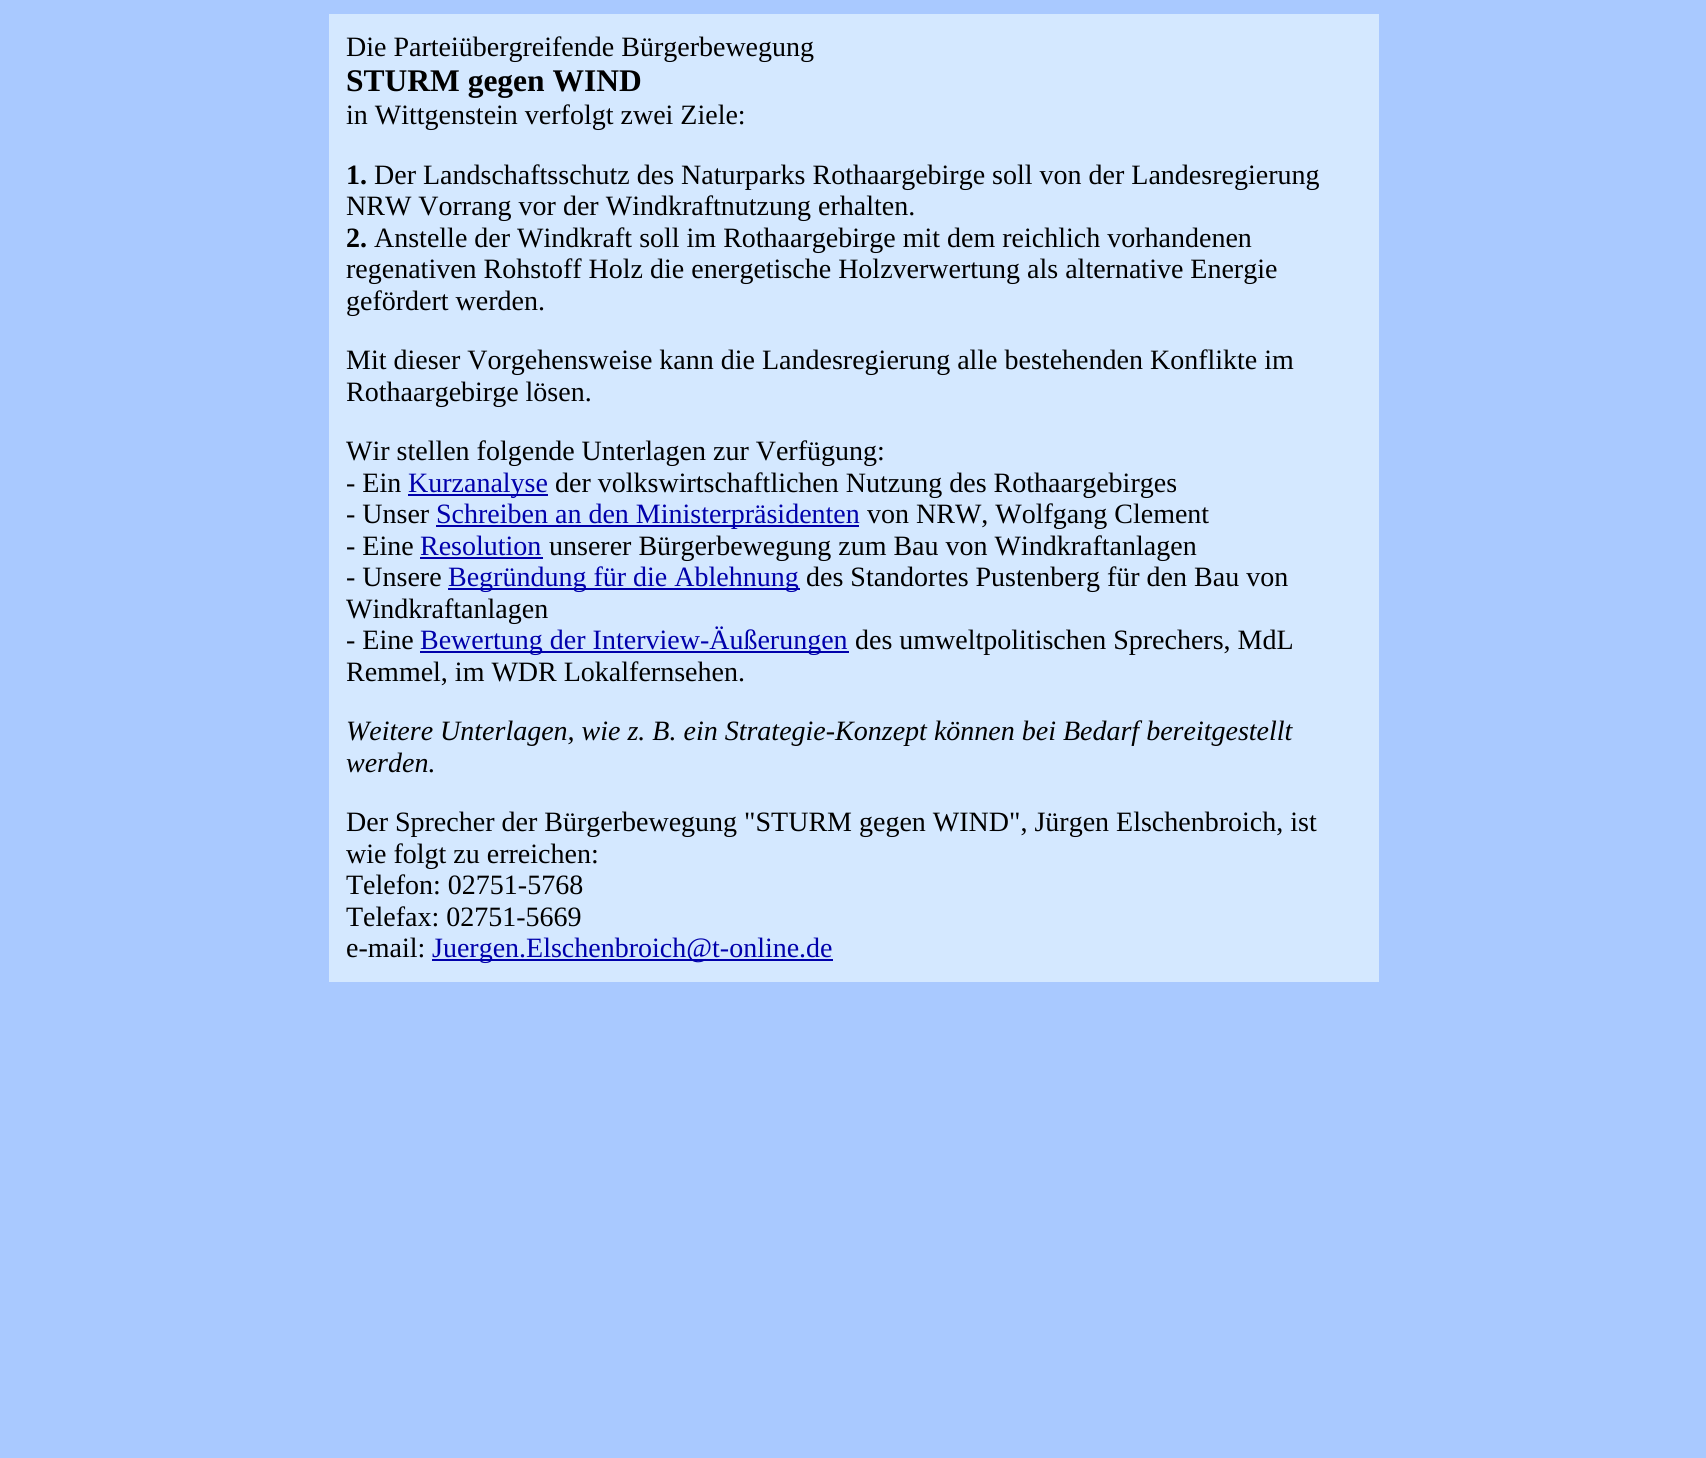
#include <cairo/cairo.h>
#include <math.h>
#include <stddef.h>

typedef struct { double x, y; const char *s; } line_t;
typedef struct { double x, y, w, h; unsigned color; } box_t;
static cairo_t *cr;

static void rgb(unsigned color)
{
	cairo_set_source_rgb(cr, (color >> 16) / 255.0, (color >> 8 & 255) / 255.0, (color & 255) / 255.0);
}

int main(void) {
	cairo_surface_t *surface = cairo_image_surface_create(CAIRO_FORMAT_RGB24, 1706, 1458);
	cr = cairo_create(surface);
	cairo_font_options_t *options = cairo_font_options_create();
	cairo_font_options_set_hint_metrics(options, CAIRO_HINT_METRICS_OFF);
	cairo_font_options_set_hint_style(options, CAIRO_HINT_STYLE_NONE);
	cairo_set_font_options(cr, options);
	cairo_set_miter_limit(cr, 4);
	rgb(0xa9c9ff);
	cairo_paint(cr);
	{
		static const box_t items[] = {
			{329, 14, 1050, 968, 0xd4e8ff},
			{408, 494, 140, 2, 0x0000ab},
			{436, 525, 423, 2, 0x0000ab},
			{420, 557, 123, 2, 0x0000ab},
			{448, 588, 352, 2, 0x0000ab},
			{420, 651, 429, 2, 0x0000ab},
			{432, 959, 401, 2, 0x0000ab},
		};
		for (size_t i = 0; i < sizeof items / sizeof *items; i++) {
			rgb(items[i].color);
			cairo_rectangle(cr, items[i].x, items[i].y, items[i].w, items[i].h);
			cairo_fill(cr);
		}
	}
	cairo_select_font_face(cr, "Liberation Serif", CAIRO_FONT_SLANT_NORMAL, CAIRO_FONT_WEIGHT_NORMAL);
	cairo_set_font_size(cr, 28);
	rgb(0x000000);
	cairo_move_to(cr, 346, 56);
	cairo_show_text(cr, "Die Parteiübergreifende Bürgerbewegung");
	cairo_select_font_face(cr, "Liberation Serif", CAIRO_FONT_SLANT_NORMAL, CAIRO_FONT_WEIGHT_BOLD);
	cairo_set_font_size(cr, 31.5);
	cairo_move_to(cr, 346, 91);
	cairo_show_text(cr, "STURM gegen WIND");
	cairo_select_font_face(cr, "Liberation Serif", CAIRO_FONT_SLANT_NORMAL, CAIRO_FONT_WEIGHT_NORMAL);
	cairo_set_font_size(cr, 28);
	cairo_move_to(cr, 346, 124);
	cairo_show_text(cr, "in Wittgenstein verfolgt zwei Ziele:");
	cairo_select_font_face(cr, "Liberation Serif", CAIRO_FONT_SLANT_NORMAL, CAIRO_FONT_WEIGHT_BOLD);
	cairo_move_to(cr, 346, 184);
	cairo_show_text(cr, "1.");
	cairo_select_font_face(cr, "Liberation Serif", CAIRO_FONT_SLANT_NORMAL, CAIRO_FONT_WEIGHT_NORMAL);
	cairo_move_to(cr, 374, 184);
	cairo_show_text(cr, "Der Landschaftsschutz des Naturparks Rothaargebirge soll von der Landesregierung");
	cairo_move_to(cr, 346, 215);
	cairo_show_text(cr, "NRW Vorrang vor der Windkraftnutzung erhalten.");
	cairo_select_font_face(cr, "Liberation Serif", CAIRO_FONT_SLANT_NORMAL, CAIRO_FONT_WEIGHT_BOLD);
	cairo_move_to(cr, 346, 247);
	cairo_show_text(cr, "2.");
	cairo_select_font_face(cr, "Liberation Serif", CAIRO_FONT_SLANT_NORMAL, CAIRO_FONT_WEIGHT_NORMAL);
	{
		static const line_t items[] = {
			{374, 247, "Anstelle der Windkraft soll im Rothaargebirge mit dem reichlich vorhandenen"},
			{346, 278, "regenativen Rohstoff Holz die energetische Holzverwertung als alternative Energie"},
			{346, 310, "gefördert werden."},
			{346, 369, "Mit dieser Vorgehensweise kann die Landesregierung alle bestehenden Konflikte im"},
			{346, 401, "Rothaargebirge lösen."},
			{346, 460, "Wir stellen folgende Unterlagen zur Verfügung:"},
			{346, 492, "- Ein"},
		};
		for (size_t i = 0; i < sizeof items / sizeof *items; i++) {
			cairo_move_to(cr, items[i].x, items[i].y);
			cairo_show_text(cr, items[i].s);
		}
	}
	rgb(0x0000ab);
	cairo_move_to(cr, 408, 492);
	cairo_show_text(cr, "Kurzanalyse");
	rgb(0x000000);
	cairo_move_to(cr, 555, 492);
	cairo_show_text(cr, "der volkswirtschaftlichen Nutzung des Rothaargebirges");
	cairo_move_to(cr, 346, 523);
	cairo_show_text(cr, "- Unser");
	rgb(0x0000ab);
	cairo_move_to(cr, 436, 523);
	cairo_show_text(cr, "Schreiben an den Ministerpräsidenten");
	rgb(0x000000);
	cairo_move_to(cr, 867, 523);
	cairo_show_text(cr, "von NRW, Wolfgang Clement");
	cairo_move_to(cr, 346, 555);
	cairo_show_text(cr, "- Eine");
	rgb(0x0000ab);
	cairo_move_to(cr, 420, 555);
	cairo_show_text(cr, "Resolution");
	rgb(0x000000);
	cairo_move_to(cr, 549, 555);
	cairo_show_text(cr, "unserer Bürgerbewegung zum Bau von Windkraftanlagen");
	cairo_move_to(cr, 346, 586);
	cairo_show_text(cr, "- Unsere");
	rgb(0x0000ab);
	cairo_move_to(cr, 448, 586);
	cairo_show_text(cr, "Begründung für die Ablehnung");
	rgb(0x000000);
	{
		static const line_t items[] = {
			{806, 586, "des Standortes Pustenberg für den Bau von"},
			{346, 618, "Windkraftanlagen"},
			{346, 649, "- Eine"},
		};
		for (size_t i = 0; i < sizeof items / sizeof *items; i++) {
			cairo_move_to(cr, items[i].x, items[i].y);
			cairo_show_text(cr, items[i].s);
		}
	}
	rgb(0x0000ab);
	cairo_move_to(cr, 420, 649);
	cairo_show_text(cr, "Bewertung der Interview-Äußerungen");
	rgb(0x000000);
	cairo_move_to(cr, 855, 649);
	cairo_show_text(cr, "des umweltpolitischen Sprechers, MdL");
	cairo_move_to(cr, 346, 681);
	cairo_show_text(cr, "Remmel, im WDR Lokalfernsehen.");
	cairo_select_font_face(cr, "Liberation Serif", CAIRO_FONT_SLANT_ITALIC, CAIRO_FONT_WEIGHT_NORMAL);
	cairo_move_to(cr, 346, 740);
	cairo_show_text(cr, "Weitere Unterlagen, wie z. B. ein Strategie-Konzept können bei Bedarf bereitgestellt");
	cairo_move_to(cr, 346, 772);
	cairo_show_text(cr, "werden.");
	cairo_select_font_face(cr, "Liberation Serif", CAIRO_FONT_SLANT_NORMAL, CAIRO_FONT_WEIGHT_NORMAL);
	{
		static const line_t items[] = {
			{346, 831, "Der Sprecher der Bürgerbewegung \"STURM gegen WIND\", Jürgen Elschenbroich, ist"},
			{346, 863, "wie folgt zu erreichen:"},
			{346, 894, "Telefon: 02751-5768"},
			{346, 926, "Telefax: 02751-5669"},
			{346, 957, "e-mail:"},
		};
		for (size_t i = 0; i < sizeof items / sizeof *items; i++) {
			cairo_move_to(cr, items[i].x, items[i].y);
			cairo_show_text(cr, items[i].s);
		}
	}
	rgb(0x0000ab);
	cairo_move_to(cr, 432, 957);
	cairo_show_text(cr, "Juergen.Elschenbroich@t-online.de");
	cairo_surface_write_to_png(surface, "page.png");
	cairo_font_options_destroy(options);
	cairo_destroy(cr);
	cairo_surface_destroy(surface);
	return 0;
}
